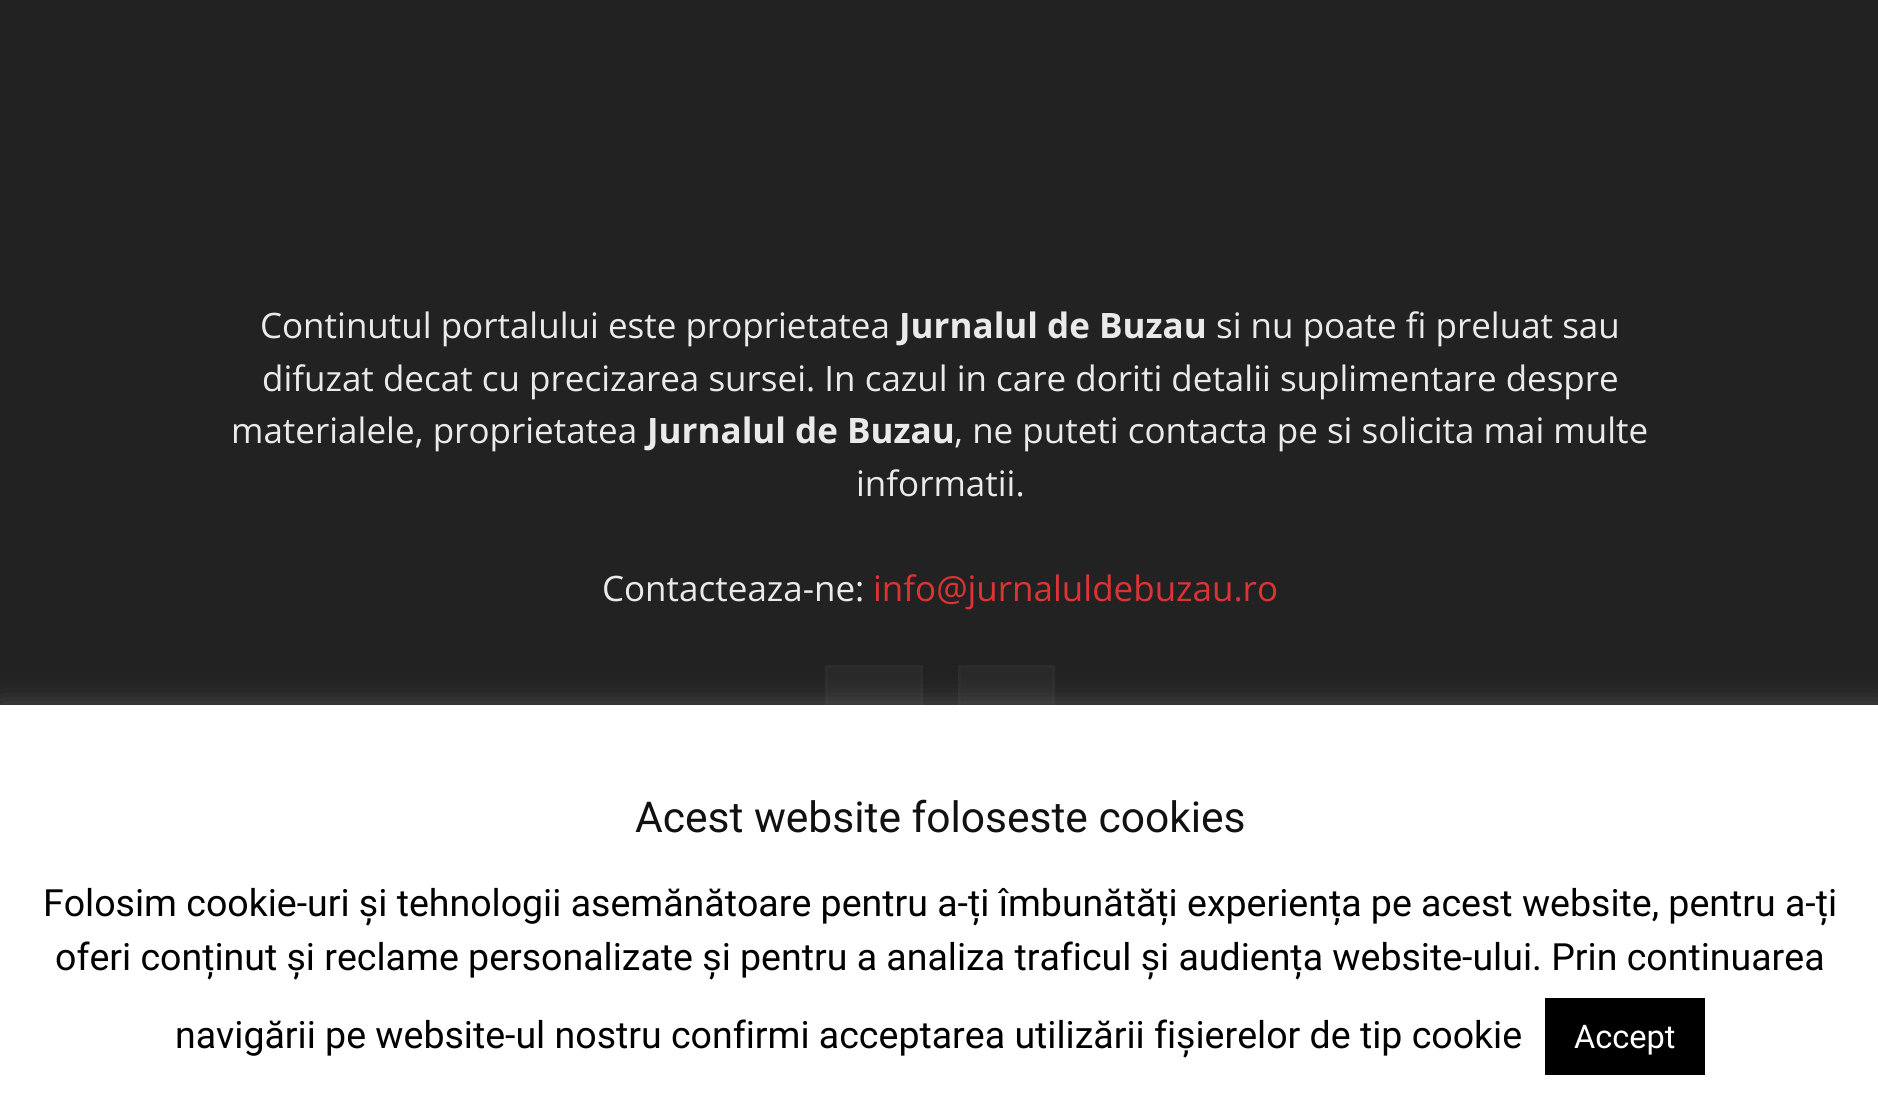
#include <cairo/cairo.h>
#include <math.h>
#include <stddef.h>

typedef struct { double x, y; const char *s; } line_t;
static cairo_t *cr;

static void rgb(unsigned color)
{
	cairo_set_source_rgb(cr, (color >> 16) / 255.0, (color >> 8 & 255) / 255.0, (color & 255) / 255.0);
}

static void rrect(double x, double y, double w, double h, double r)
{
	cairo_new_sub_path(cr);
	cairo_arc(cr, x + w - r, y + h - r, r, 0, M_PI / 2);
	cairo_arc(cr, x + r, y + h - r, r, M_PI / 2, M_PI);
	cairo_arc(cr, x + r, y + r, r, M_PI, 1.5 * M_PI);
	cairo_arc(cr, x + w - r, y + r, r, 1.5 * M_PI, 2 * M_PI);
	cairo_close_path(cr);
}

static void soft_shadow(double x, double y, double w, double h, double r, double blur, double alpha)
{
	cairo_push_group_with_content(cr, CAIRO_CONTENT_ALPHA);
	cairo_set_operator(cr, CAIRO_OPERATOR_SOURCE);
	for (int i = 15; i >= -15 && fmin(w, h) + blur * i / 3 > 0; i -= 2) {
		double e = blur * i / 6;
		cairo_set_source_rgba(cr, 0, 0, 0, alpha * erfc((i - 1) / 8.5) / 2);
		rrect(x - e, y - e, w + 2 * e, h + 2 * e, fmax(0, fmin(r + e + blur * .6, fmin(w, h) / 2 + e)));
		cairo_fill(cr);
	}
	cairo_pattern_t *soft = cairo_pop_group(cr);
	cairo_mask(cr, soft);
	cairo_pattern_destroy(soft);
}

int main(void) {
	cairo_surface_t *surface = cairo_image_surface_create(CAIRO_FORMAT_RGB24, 1878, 1104);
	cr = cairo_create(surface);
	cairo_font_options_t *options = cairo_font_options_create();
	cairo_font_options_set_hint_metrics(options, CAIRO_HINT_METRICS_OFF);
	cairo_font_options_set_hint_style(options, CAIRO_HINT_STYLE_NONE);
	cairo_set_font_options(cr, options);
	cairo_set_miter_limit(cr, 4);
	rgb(0x222222);
	cairo_paint(cr);
	rgb(0x292929);
	cairo_rectangle(cr, 828, 668, 92, 37);
	cairo_fill(cr);
	cairo_rectangle(cr, 826.5, 666.5, 95, 95);
	rgb(0x2e2c2a);
	cairo_set_line_width(cr, 3);
	cairo_stroke(cr);
	rgb(0x292929);
	cairo_rectangle(cr, 961, 668, 91, 37);
	cairo_fill(cr);
	cairo_rectangle(cr, 959.5, 666.5, 94, 95);
	rgb(0x2e2c2a);
	cairo_stroke(cr);
	rgb(0xacabab);
	soft_shadow(0, 703, 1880, 400, 0, 12.5, 0.3);
	rgb(0xffffff);
	cairo_rectangle(cr, 0, 705, 1878, 399);
	cairo_fill(cr);
	rgb(0x000000);
	cairo_rectangle(cr, 1545, 998, 160, 77);
	cairo_fill(cr);
	cairo_select_font_face(cr, "Open Sans", CAIRO_FONT_SLANT_NORMAL, CAIRO_FONT_WEIGHT_NORMAL);
	cairo_set_font_size(cr, 35);
	rgb(0xeaeaea);
	cairo_move_to(cr, 260, 338);
	cairo_show_text(cr, "Continutul portalului este proprietatea");
	cairo_select_font_face(cr, "Open Sans", CAIRO_FONT_SLANT_NORMAL, CAIRO_FONT_WEIGHT_BOLD);
	cairo_move_to(cr, 899, 338);
	cairo_show_text(cr, "Jurnalul de Buzau");
	cairo_select_font_face(cr, "Open Sans", CAIRO_FONT_SLANT_NORMAL, CAIRO_FONT_WEIGHT_NORMAL);
	{
		static const line_t items[] = {
			{1216, 338, "si nu poate fi preluat sau"},
			{262, 391, "difuzat decat cu precizarea sursei. In cazul in care doriti detalii suplimentare despre"},
			{231, 443, "materialele, proprietatea"},
		};
		for (size_t i = 0; i < sizeof items / sizeof *items; i++) {
			cairo_move_to(cr, items[i].x, items[i].y);
			cairo_show_text(cr, items[i].s);
		}
	}
	cairo_select_font_face(cr, "Open Sans", CAIRO_FONT_SLANT_NORMAL, CAIRO_FONT_WEIGHT_BOLD);
	cairo_move_to(cr, 647, 443);
	cairo_show_text(cr, "Jurnalul de Buzau");
	cairo_select_font_face(cr, "Open Sans", CAIRO_FONT_SLANT_NORMAL, CAIRO_FONT_WEIGHT_NORMAL);
	{
		static const line_t items[] = {
			{954, 443, ", ne puteti contacta pe si solicita mai multe"},
			{856, 496, "informatii."},
			{602, 601, "Contacteaza-ne:"},
		};
		for (size_t i = 0; i < sizeof items / sizeof *items; i++) {
			cairo_move_to(cr, items[i].x, items[i].y);
			cairo_show_text(cr, items[i].s);
		}
	}
	rgb(0xdd3333);
	cairo_move_to(cr, 873, 601);
	cairo_show_text(cr, "info@jurnaluldebuzau.ro");
	cairo_select_font_face(cr, "Roboto", CAIRO_FONT_SLANT_NORMAL, CAIRO_FONT_WEIGHT_NORMAL);
	cairo_set_font_size(cr, 42.5);
	rgb(0x111111);
	cairo_move_to(cr, 635, 832);
	cairo_show_text(cr, "Acest website foloseste cookies");
	cairo_set_font_size(cr, 37.5);
	rgb(0x000000);
	{
		static const line_t items[] = {
			{43, 916, "Folosim cookie-uri și tehnologii asemănătoare pentru a-ți îmbunătăți experiența pe acest website, pentru a-ți"},
			{55, 970, "oferi conținut și reclame personalizate și pentru a analiza traficul și audiența website-ului. Prin continuarea"},
			{175, 1048, "navigării pe website-ul nostru confirmi acceptarea utilizării fișierelor de tip cookie"},
		};
		for (size_t i = 0; i < sizeof items / sizeof *items; i++) {
			cairo_move_to(cr, items[i].x, items[i].y);
			cairo_show_text(cr, items[i].s);
		}
	}
	cairo_set_font_size(cr, 32.5);
	rgb(0xffffff);
	cairo_move_to(cr, 1574, 1048);
	cairo_show_text(cr, "Accept");
	cairo_surface_write_to_png(surface, "page.png");
	cairo_font_options_destroy(options);
	cairo_destroy(cr);
	cairo_surface_destroy(surface);
	return 0;
}
